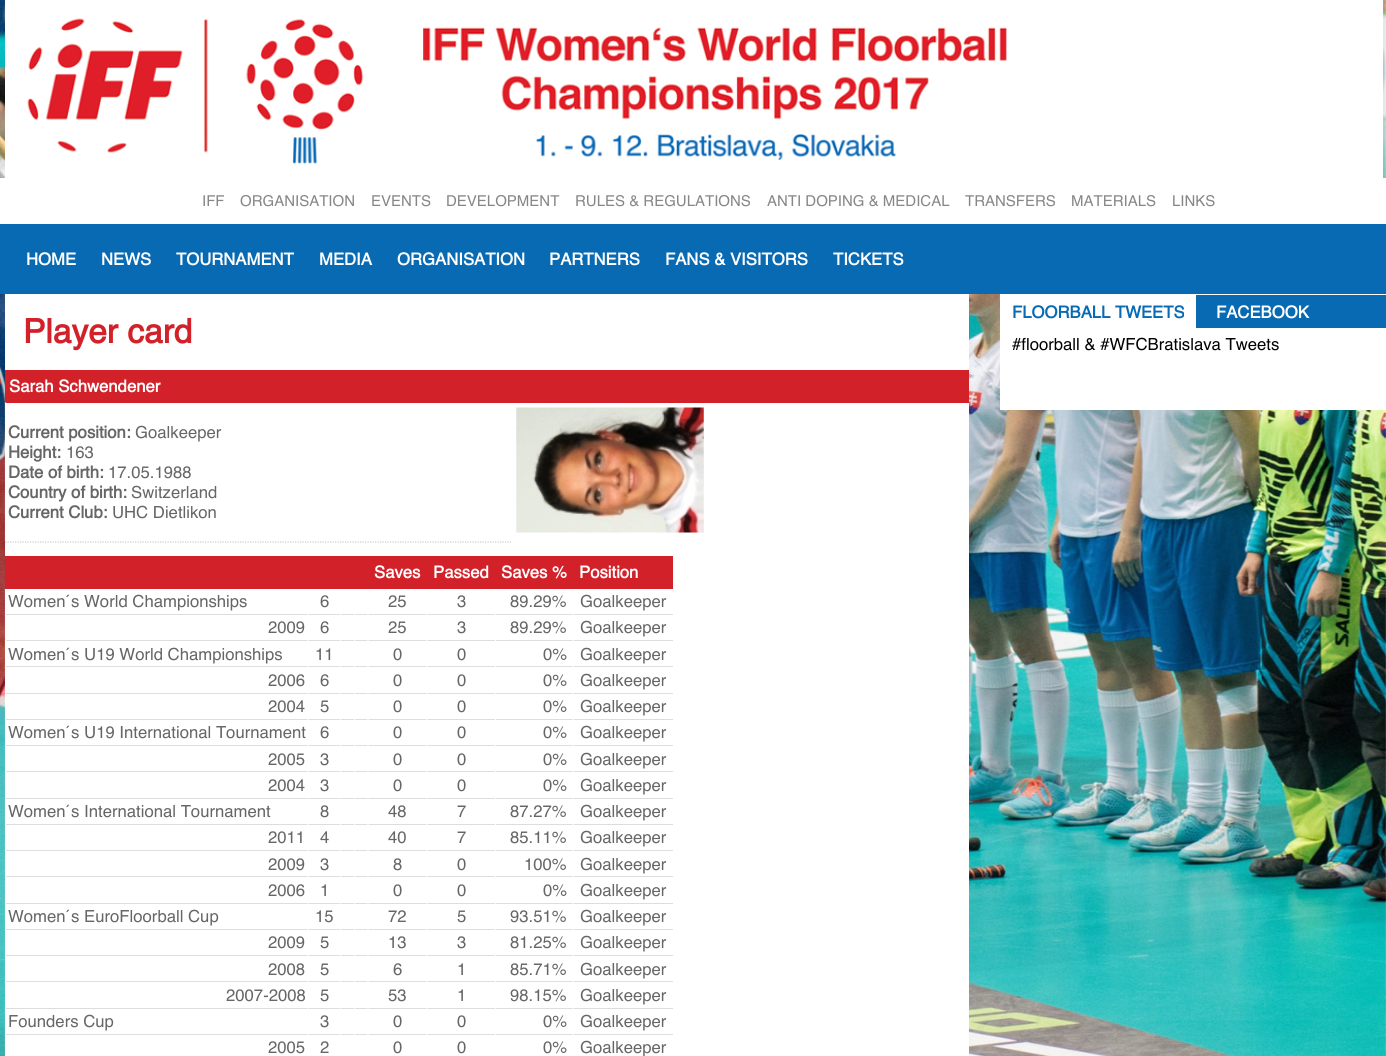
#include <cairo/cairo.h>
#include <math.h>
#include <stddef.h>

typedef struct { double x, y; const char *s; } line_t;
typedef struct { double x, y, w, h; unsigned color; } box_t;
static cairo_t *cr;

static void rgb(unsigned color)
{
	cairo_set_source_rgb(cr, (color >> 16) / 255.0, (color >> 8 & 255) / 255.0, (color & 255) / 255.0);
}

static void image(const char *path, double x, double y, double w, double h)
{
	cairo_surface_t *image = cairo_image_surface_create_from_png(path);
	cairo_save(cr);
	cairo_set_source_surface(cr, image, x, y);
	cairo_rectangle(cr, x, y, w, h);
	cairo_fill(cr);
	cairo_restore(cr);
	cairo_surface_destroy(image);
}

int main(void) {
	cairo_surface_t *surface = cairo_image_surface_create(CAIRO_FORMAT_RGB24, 1386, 1056);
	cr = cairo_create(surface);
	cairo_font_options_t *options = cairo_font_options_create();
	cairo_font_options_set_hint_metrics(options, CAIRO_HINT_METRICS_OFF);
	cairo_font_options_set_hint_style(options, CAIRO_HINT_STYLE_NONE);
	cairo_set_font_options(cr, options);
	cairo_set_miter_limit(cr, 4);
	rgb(0xffffff);
	cairo_paint(cr);
	image("img/1.png", 0, 0, 1386, 1056);
	rgb(0xffffff);
	cairo_rectangle(cr, 5, 0, 1378, 178);
	cairo_fill(cr);
	image("img/2.png", 27, 18, 980, 146);
	{
		static const box_t items[] = {
			{0, 178, 1386, 46, 0xffffff},
			{0, 224, 1386, 70, 0x086ab3},
			{5, 294, 964, 762, 0xffffff},
			{5, 370, 964, 33, 0xd22129},
		};
		for (size_t i = 0; i < sizeof items / sizeof *items; i++) {
			rgb(items[i].color);
			cairo_rectangle(cr, items[i].x, items[i].y, items[i].w, items[i].h);
			cairo_fill(cr);
		}
	}
	cairo_new_path(cr);
	cairo_move_to(cr, 5, 542);
	cairo_line_to(cr, 511, 542);
	rgb(0xcccccc);
	cairo_set_line_width(cr, 1.2);
	cairo_set_dash(cr, (double[]){1.25, 1.25}, 2, 0);
	cairo_stroke(cr);
	cairo_new_path(cr);
	cairo_move_to(cr, 5.5, 402.5);
	cairo_line_to(cr, 5.5, 542.5);
	rgb(0xffffff);
	cairo_stroke(cr);
	image("img/3.png", 516, 407, 188, 126);
	rgb(0xd22129);
	cairo_rectangle(cr, 5, 556, 668, 33);
	cairo_fill(cr);
	rgb(0xdddddd);
	cairo_rectangle(cr, 5, 614, 668, 1);
	cairo_fill(cr);
	cairo_new_path(cr);
	cairo_move_to(cr, 5.5, 589);
	cairo_line_to(cr, 5.5, 615);
	rgb(0xffffff);
	cairo_stroke(cr);
	cairo_new_path(cr);
	cairo_move_to(cr, 308, 589);
	cairo_line_to(cr, 308, 615);
	cairo_move_to(cr, 340.5, 589);
	cairo_line_to(cr, 340.5, 615);
	cairo_move_to(cr, 354.5, 589);
	cairo_line_to(cr, 354.5, 615);
	cairo_move_to(cr, 368, 589);
	cairo_line_to(cr, 368, 615);
	cairo_stroke(cr);
	cairo_new_path(cr);
	cairo_move_to(cr, 427, 589);
	cairo_line_to(cr, 427, 615);
	cairo_stroke(cr);
	cairo_new_path(cr);
	cairo_move_to(cr, 495.5, 589);
	cairo_line_to(cr, 495.5, 615);
	cairo_stroke(cr);
	cairo_new_path(cr);
	cairo_move_to(cr, 573, 589);
	cairo_line_to(cr, 573, 615);
	cairo_stroke(cr);
	rgb(0xdddddd);
	cairo_rectangle(cr, 5, 640, 668, 1);
	cairo_fill(cr);
	cairo_new_path(cr);
	cairo_move_to(cr, 5.5, 615);
	cairo_line_to(cr, 5.5, 641);
	rgb(0xffffff);
	cairo_stroke(cr);
	cairo_new_path(cr);
	cairo_move_to(cr, 308, 615);
	cairo_line_to(cr, 308, 641);
	cairo_move_to(cr, 340.5, 615);
	cairo_line_to(cr, 340.5, 641);
	cairo_move_to(cr, 354.5, 615);
	cairo_line_to(cr, 354.5, 641);
	cairo_move_to(cr, 368, 615);
	cairo_line_to(cr, 368, 641);
	cairo_stroke(cr);
	cairo_new_path(cr);
	cairo_move_to(cr, 427, 615);
	cairo_line_to(cr, 427, 641);
	cairo_stroke(cr);
	cairo_new_path(cr);
	cairo_move_to(cr, 495.5, 615);
	cairo_line_to(cr, 495.5, 641);
	cairo_stroke(cr);
	cairo_new_path(cr);
	cairo_move_to(cr, 573, 615);
	cairo_line_to(cr, 573, 641);
	cairo_stroke(cr);
	rgb(0xdddddd);
	cairo_rectangle(cr, 5, 666, 668, 1);
	cairo_fill(cr);
	cairo_new_path(cr);
	cairo_move_to(cr, 5.5, 641);
	cairo_line_to(cr, 5.5, 667.5);
	rgb(0xffffff);
	cairo_stroke(cr);
	cairo_new_path(cr);
	cairo_move_to(cr, 308, 641);
	cairo_line_to(cr, 308, 667.5);
	cairo_move_to(cr, 340.5, 641);
	cairo_line_to(cr, 340.5, 667.5);
	cairo_move_to(cr, 354.5, 641);
	cairo_line_to(cr, 354.5, 667.5);
	cairo_move_to(cr, 368, 641);
	cairo_line_to(cr, 368, 667.5);
	cairo_stroke(cr);
	cairo_new_path(cr);
	cairo_move_to(cr, 427, 641);
	cairo_line_to(cr, 427, 667.5);
	cairo_stroke(cr);
	cairo_new_path(cr);
	cairo_move_to(cr, 495.5, 641);
	cairo_line_to(cr, 495.5, 667.5);
	cairo_stroke(cr);
	cairo_new_path(cr);
	cairo_move_to(cr, 573, 641);
	cairo_line_to(cr, 573, 667.5);
	cairo_stroke(cr);
	rgb(0xdddddd);
	cairo_rectangle(cr, 5, 693, 668, 1);
	cairo_fill(cr);
	cairo_new_path(cr);
	cairo_move_to(cr, 5.5, 667.5);
	cairo_line_to(cr, 5.5, 694);
	rgb(0xffffff);
	cairo_stroke(cr);
	cairo_new_path(cr);
	cairo_move_to(cr, 308, 667.5);
	cairo_line_to(cr, 308, 694);
	cairo_move_to(cr, 340.5, 667.5);
	cairo_line_to(cr, 340.5, 694);
	cairo_move_to(cr, 354.5, 667.5);
	cairo_line_to(cr, 354.5, 694);
	cairo_move_to(cr, 368, 667.5);
	cairo_line_to(cr, 368, 694);
	cairo_stroke(cr);
	cairo_new_path(cr);
	cairo_move_to(cr, 427, 667.5);
	cairo_line_to(cr, 427, 694);
	cairo_stroke(cr);
	cairo_new_path(cr);
	cairo_move_to(cr, 495.5, 667.5);
	cairo_line_to(cr, 495.5, 694);
	cairo_stroke(cr);
	cairo_new_path(cr);
	cairo_move_to(cr, 573, 667.5);
	cairo_line_to(cr, 573, 694);
	cairo_stroke(cr);
	rgb(0xdddddd);
	cairo_rectangle(cr, 5, 719, 668, 1);
	cairo_fill(cr);
	cairo_new_path(cr);
	cairo_move_to(cr, 5.5, 694);
	cairo_line_to(cr, 5.5, 720);
	rgb(0xffffff);
	cairo_stroke(cr);
	cairo_new_path(cr);
	cairo_move_to(cr, 308, 694);
	cairo_line_to(cr, 308, 720);
	cairo_move_to(cr, 340.5, 694);
	cairo_line_to(cr, 340.5, 720);
	cairo_move_to(cr, 354.5, 694);
	cairo_line_to(cr, 354.5, 720);
	cairo_move_to(cr, 368, 694);
	cairo_line_to(cr, 368, 720);
	cairo_stroke(cr);
	cairo_new_path(cr);
	cairo_move_to(cr, 427, 694);
	cairo_line_to(cr, 427, 720);
	cairo_stroke(cr);
	cairo_new_path(cr);
	cairo_move_to(cr, 495.5, 694);
	cairo_line_to(cr, 495.5, 720);
	cairo_stroke(cr);
	cairo_new_path(cr);
	cairo_move_to(cr, 573, 694);
	cairo_line_to(cr, 573, 720);
	cairo_stroke(cr);
	rgb(0xdddddd);
	cairo_rectangle(cr, 5, 745, 668, 1);
	cairo_fill(cr);
	cairo_new_path(cr);
	cairo_move_to(cr, 5.5, 720);
	cairo_line_to(cr, 5.5, 746);
	rgb(0xffffff);
	cairo_stroke(cr);
	cairo_new_path(cr);
	cairo_move_to(cr, 308, 720);
	cairo_line_to(cr, 308, 746);
	cairo_move_to(cr, 340.5, 720);
	cairo_line_to(cr, 340.5, 746);
	cairo_move_to(cr, 354.5, 720);
	cairo_line_to(cr, 354.5, 746);
	cairo_move_to(cr, 368, 720);
	cairo_line_to(cr, 368, 746);
	cairo_stroke(cr);
	cairo_new_path(cr);
	cairo_move_to(cr, 427, 720);
	cairo_line_to(cr, 427, 746);
	cairo_stroke(cr);
	cairo_new_path(cr);
	cairo_move_to(cr, 495.5, 720);
	cairo_line_to(cr, 495.5, 746);
	cairo_stroke(cr);
	cairo_new_path(cr);
	cairo_move_to(cr, 573, 720);
	cairo_line_to(cr, 573, 746);
	cairo_stroke(cr);
	rgb(0xdddddd);
	cairo_rectangle(cr, 5, 771, 668, 1);
	cairo_fill(cr);
	cairo_new_path(cr);
	cairo_move_to(cr, 5.5, 746);
	cairo_line_to(cr, 5.5, 772.5);
	rgb(0xffffff);
	cairo_stroke(cr);
	cairo_new_path(cr);
	cairo_move_to(cr, 308, 746);
	cairo_line_to(cr, 308, 772.5);
	cairo_move_to(cr, 340.5, 746);
	cairo_line_to(cr, 340.5, 772.5);
	cairo_move_to(cr, 354.5, 746);
	cairo_line_to(cr, 354.5, 772.5);
	cairo_move_to(cr, 368, 746);
	cairo_line_to(cr, 368, 772.5);
	cairo_stroke(cr);
	cairo_new_path(cr);
	cairo_move_to(cr, 427, 746);
	cairo_line_to(cr, 427, 772.5);
	cairo_stroke(cr);
	cairo_new_path(cr);
	cairo_move_to(cr, 495.5, 746);
	cairo_line_to(cr, 495.5, 772.5);
	cairo_stroke(cr);
	cairo_new_path(cr);
	cairo_move_to(cr, 573, 746);
	cairo_line_to(cr, 573, 772.5);
	cairo_stroke(cr);
	rgb(0xdddddd);
	cairo_rectangle(cr, 5, 798, 668, 1);
	cairo_fill(cr);
	cairo_new_path(cr);
	cairo_move_to(cr, 5.5, 772.5);
	cairo_line_to(cr, 5.5, 799);
	rgb(0xffffff);
	cairo_stroke(cr);
	cairo_new_path(cr);
	cairo_move_to(cr, 308, 772.5);
	cairo_line_to(cr, 308, 799);
	cairo_move_to(cr, 340.5, 772.5);
	cairo_line_to(cr, 340.5, 799);
	cairo_move_to(cr, 354.5, 772.5);
	cairo_line_to(cr, 354.5, 799);
	cairo_move_to(cr, 368, 772.5);
	cairo_line_to(cr, 368, 799);
	cairo_stroke(cr);
	cairo_new_path(cr);
	cairo_move_to(cr, 427, 772.5);
	cairo_line_to(cr, 427, 799);
	cairo_stroke(cr);
	cairo_new_path(cr);
	cairo_move_to(cr, 495.5, 772.5);
	cairo_line_to(cr, 495.5, 799);
	cairo_stroke(cr);
	cairo_new_path(cr);
	cairo_move_to(cr, 573, 772.5);
	cairo_line_to(cr, 573, 799);
	cairo_stroke(cr);
	rgb(0xdddddd);
	cairo_rectangle(cr, 5, 824, 668, 1);
	cairo_fill(cr);
	cairo_new_path(cr);
	cairo_move_to(cr, 5.5, 799);
	cairo_line_to(cr, 5.5, 825);
	rgb(0xffffff);
	cairo_stroke(cr);
	cairo_new_path(cr);
	cairo_move_to(cr, 308, 799);
	cairo_line_to(cr, 308, 825);
	cairo_move_to(cr, 340.5, 799);
	cairo_line_to(cr, 340.5, 825);
	cairo_move_to(cr, 354.5, 799);
	cairo_line_to(cr, 354.5, 825);
	cairo_move_to(cr, 368, 799);
	cairo_line_to(cr, 368, 825);
	cairo_stroke(cr);
	cairo_new_path(cr);
	cairo_move_to(cr, 427, 799);
	cairo_line_to(cr, 427, 825);
	cairo_stroke(cr);
	cairo_new_path(cr);
	cairo_move_to(cr, 495.5, 799);
	cairo_line_to(cr, 495.5, 825);
	cairo_stroke(cr);
	cairo_new_path(cr);
	cairo_move_to(cr, 573, 799);
	cairo_line_to(cr, 573, 825);
	cairo_stroke(cr);
	rgb(0xdddddd);
	cairo_rectangle(cr, 5, 850, 668, 1);
	cairo_fill(cr);
	cairo_new_path(cr);
	cairo_move_to(cr, 5.5, 825);
	cairo_line_to(cr, 5.5, 851);
	rgb(0xffffff);
	cairo_stroke(cr);
	cairo_new_path(cr);
	cairo_move_to(cr, 308, 825);
	cairo_line_to(cr, 308, 851);
	cairo_move_to(cr, 340.5, 825);
	cairo_line_to(cr, 340.5, 851);
	cairo_move_to(cr, 354.5, 825);
	cairo_line_to(cr, 354.5, 851);
	cairo_move_to(cr, 368, 825);
	cairo_line_to(cr, 368, 851);
	cairo_stroke(cr);
	cairo_new_path(cr);
	cairo_move_to(cr, 427, 825);
	cairo_line_to(cr, 427, 851);
	cairo_stroke(cr);
	cairo_new_path(cr);
	cairo_move_to(cr, 495.5, 825);
	cairo_line_to(cr, 495.5, 851);
	cairo_stroke(cr);
	cairo_new_path(cr);
	cairo_move_to(cr, 573, 825);
	cairo_line_to(cr, 573, 851);
	cairo_stroke(cr);
	rgb(0xdddddd);
	cairo_rectangle(cr, 5, 876, 668, 1);
	cairo_fill(cr);
	cairo_new_path(cr);
	cairo_move_to(cr, 5.5, 851);
	cairo_line_to(cr, 5.5, 877.5);
	rgb(0xffffff);
	cairo_stroke(cr);
	cairo_new_path(cr);
	cairo_move_to(cr, 308, 851);
	cairo_line_to(cr, 308, 877.5);
	cairo_move_to(cr, 340.5, 851);
	cairo_line_to(cr, 340.5, 877.5);
	cairo_move_to(cr, 354.5, 851);
	cairo_line_to(cr, 354.5, 877.5);
	cairo_move_to(cr, 368, 851);
	cairo_line_to(cr, 368, 877.5);
	cairo_stroke(cr);
	cairo_new_path(cr);
	cairo_move_to(cr, 427, 851);
	cairo_line_to(cr, 427, 877.5);
	cairo_stroke(cr);
	cairo_new_path(cr);
	cairo_move_to(cr, 495.5, 851);
	cairo_line_to(cr, 495.5, 877.5);
	cairo_stroke(cr);
	cairo_new_path(cr);
	cairo_move_to(cr, 573, 851);
	cairo_line_to(cr, 573, 877.5);
	cairo_stroke(cr);
	rgb(0xdddddd);
	cairo_rectangle(cr, 5, 903, 668, 1);
	cairo_fill(cr);
	cairo_new_path(cr);
	cairo_move_to(cr, 5.5, 877.5);
	cairo_line_to(cr, 5.5, 904);
	rgb(0xffffff);
	cairo_stroke(cr);
	cairo_new_path(cr);
	cairo_move_to(cr, 308, 877.5);
	cairo_line_to(cr, 308, 904);
	cairo_move_to(cr, 340.5, 877.5);
	cairo_line_to(cr, 340.5, 904);
	cairo_move_to(cr, 354.5, 877.5);
	cairo_line_to(cr, 354.5, 904);
	cairo_move_to(cr, 368, 877.5);
	cairo_line_to(cr, 368, 904);
	cairo_stroke(cr);
	cairo_new_path(cr);
	cairo_move_to(cr, 427, 877.5);
	cairo_line_to(cr, 427, 904);
	cairo_stroke(cr);
	cairo_new_path(cr);
	cairo_move_to(cr, 495.5, 877.5);
	cairo_line_to(cr, 495.5, 904);
	cairo_stroke(cr);
	cairo_new_path(cr);
	cairo_move_to(cr, 573, 877.5);
	cairo_line_to(cr, 573, 904);
	cairo_stroke(cr);
	rgb(0xdddddd);
	cairo_rectangle(cr, 5, 929, 668, 1);
	cairo_fill(cr);
	cairo_new_path(cr);
	cairo_move_to(cr, 5.5, 904);
	cairo_line_to(cr, 5.5, 930);
	rgb(0xffffff);
	cairo_stroke(cr);
	cairo_new_path(cr);
	cairo_move_to(cr, 308, 904);
	cairo_line_to(cr, 308, 930);
	cairo_move_to(cr, 340.5, 904);
	cairo_line_to(cr, 340.5, 930);
	cairo_move_to(cr, 354.5, 904);
	cairo_line_to(cr, 354.5, 930);
	cairo_move_to(cr, 368, 904);
	cairo_line_to(cr, 368, 930);
	cairo_stroke(cr);
	cairo_new_path(cr);
	cairo_move_to(cr, 427, 904);
	cairo_line_to(cr, 427, 930);
	cairo_stroke(cr);
	cairo_new_path(cr);
	cairo_move_to(cr, 495.5, 904);
	cairo_line_to(cr, 495.5, 930);
	cairo_stroke(cr);
	cairo_new_path(cr);
	cairo_move_to(cr, 573, 904);
	cairo_line_to(cr, 573, 930);
	cairo_stroke(cr);
	rgb(0xdddddd);
	cairo_rectangle(cr, 5, 955, 668, 1);
	cairo_fill(cr);
	cairo_new_path(cr);
	cairo_move_to(cr, 5.5, 930);
	cairo_line_to(cr, 5.5, 956);
	rgb(0xffffff);
	cairo_stroke(cr);
	cairo_new_path(cr);
	cairo_move_to(cr, 308, 930);
	cairo_line_to(cr, 308, 956);
	cairo_move_to(cr, 340.5, 930);
	cairo_line_to(cr, 340.5, 956);
	cairo_move_to(cr, 354.5, 930);
	cairo_line_to(cr, 354.5, 956);
	cairo_move_to(cr, 368, 930);
	cairo_line_to(cr, 368, 956);
	cairo_stroke(cr);
	cairo_new_path(cr);
	cairo_move_to(cr, 427, 930);
	cairo_line_to(cr, 427, 956);
	cairo_stroke(cr);
	cairo_new_path(cr);
	cairo_move_to(cr, 495.5, 930);
	cairo_line_to(cr, 495.5, 956);
	cairo_stroke(cr);
	cairo_new_path(cr);
	cairo_move_to(cr, 573, 930);
	cairo_line_to(cr, 573, 956);
	cairo_stroke(cr);
	rgb(0xdddddd);
	cairo_rectangle(cr, 5, 981, 668, 1);
	cairo_fill(cr);
	cairo_new_path(cr);
	cairo_move_to(cr, 5.5, 956);
	cairo_line_to(cr, 5.5, 982.5);
	rgb(0xffffff);
	cairo_stroke(cr);
	cairo_new_path(cr);
	cairo_move_to(cr, 308, 956);
	cairo_line_to(cr, 308, 982.5);
	cairo_move_to(cr, 340.5, 956);
	cairo_line_to(cr, 340.5, 982.5);
	cairo_move_to(cr, 354.5, 956);
	cairo_line_to(cr, 354.5, 982.5);
	cairo_move_to(cr, 368, 956);
	cairo_line_to(cr, 368, 982.5);
	cairo_stroke(cr);
	cairo_new_path(cr);
	cairo_move_to(cr, 427, 956);
	cairo_line_to(cr, 427, 982.5);
	cairo_stroke(cr);
	cairo_new_path(cr);
	cairo_move_to(cr, 495.5, 956);
	cairo_line_to(cr, 495.5, 982.5);
	cairo_stroke(cr);
	cairo_new_path(cr);
	cairo_move_to(cr, 573, 956);
	cairo_line_to(cr, 573, 982.5);
	cairo_stroke(cr);
	rgb(0xdddddd);
	cairo_rectangle(cr, 5, 1008, 668, 1);
	cairo_fill(cr);
	cairo_new_path(cr);
	cairo_move_to(cr, 5.5, 982.5);
	cairo_line_to(cr, 5.5, 1009);
	rgb(0xffffff);
	cairo_stroke(cr);
	cairo_new_path(cr);
	cairo_move_to(cr, 308, 982.5);
	cairo_line_to(cr, 308, 1009);
	cairo_move_to(cr, 340.5, 982.5);
	cairo_line_to(cr, 340.5, 1009);
	cairo_move_to(cr, 354.5, 982.5);
	cairo_line_to(cr, 354.5, 1009);
	cairo_move_to(cr, 368, 982.5);
	cairo_line_to(cr, 368, 1009);
	cairo_stroke(cr);
	cairo_new_path(cr);
	cairo_move_to(cr, 427, 982.5);
	cairo_line_to(cr, 427, 1009);
	cairo_stroke(cr);
	cairo_new_path(cr);
	cairo_move_to(cr, 495.5, 982.5);
	cairo_line_to(cr, 495.5, 1009);
	cairo_stroke(cr);
	cairo_new_path(cr);
	cairo_move_to(cr, 573, 982.5);
	cairo_line_to(cr, 573, 1009);
	cairo_stroke(cr);
	rgb(0xdddddd);
	cairo_rectangle(cr, 5, 1034, 668, 1);
	cairo_fill(cr);
	cairo_new_path(cr);
	cairo_move_to(cr, 5.5, 1009);
	cairo_line_to(cr, 5.5, 1035);
	rgb(0xffffff);
	cairo_stroke(cr);
	cairo_new_path(cr);
	cairo_move_to(cr, 308, 1009);
	cairo_line_to(cr, 308, 1035);
	cairo_move_to(cr, 340.5, 1009);
	cairo_line_to(cr, 340.5, 1035);
	cairo_move_to(cr, 354.5, 1009);
	cairo_line_to(cr, 354.5, 1035);
	cairo_move_to(cr, 368, 1009);
	cairo_line_to(cr, 368, 1035);
	cairo_stroke(cr);
	cairo_new_path(cr);
	cairo_move_to(cr, 427, 1009);
	cairo_line_to(cr, 427, 1035);
	cairo_stroke(cr);
	cairo_new_path(cr);
	cairo_move_to(cr, 495.5, 1009);
	cairo_line_to(cr, 495.5, 1035);
	cairo_stroke(cr);
	cairo_new_path(cr);
	cairo_move_to(cr, 573, 1009);
	cairo_line_to(cr, 573, 1035);
	cairo_stroke(cr);
	cairo_new_path(cr);
	cairo_move_to(cr, 5.5, 1035);
	cairo_line_to(cr, 5.5, 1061);
	cairo_stroke(cr);
	{
		static const box_t items[] = {
			{1196, 295, 190, 33, 0x086ab3},
			{1000, 294, 386, 1, 0xffffff},
			{1000, 295, 196, 33, 0xffffff},
			{1000, 328, 386, 82, 0xffffff},
		};
		for (size_t i = 0; i < sizeof items / sizeof *items; i++) {
			rgb(items[i].color);
			cairo_rectangle(cr, items[i].x, items[i].y, items[i].w, items[i].h);
			cairo_fill(cr);
		}
	}
	cairo_select_font_face(cr, "Helvetica", CAIRO_FONT_SLANT_NORMAL, CAIRO_FONT_WEIGHT_NORMAL);
	cairo_set_font_size(cr, 15);
	rgb(0x878786);
	{
		static const line_t items[] = {
			{202, 206, "IFF"},
			{240, 206, "ORGANISATION"},
			{371, 206, "EVENTS"},
			{446, 206, "DEVELOPMENT"},
			{575, 206, "RULES & REGULATIONS"},
			{767, 206, "ANTI DOPING & MEDICAL"},
			{965, 206, "TRANSFERS"},
			{1071, 206, "MATERIALS"},
			{1172, 206, "LINKS"},
		};
		for (size_t i = 0; i < sizeof items / sizeof *items; i++) {
			cairo_move_to(cr, items[i].x, items[i].y);
			cairo_show_text(cr, items[i].s);
		}
	}
	cairo_select_font_face(cr, "Helvetica", CAIRO_FONT_SLANT_NORMAL, CAIRO_FONT_WEIGHT_BOLD);
	cairo_set_font_size(cr, 16.7);
	rgb(0xffffff);
	{
		static const line_t items[] = {
			{26, 265, "HOME"},
			{101, 265, "NEWS"},
			{176, 265, "TOURNAMENT"},
			{319, 265, "MEDIA"},
			{397, 265, "ORGANISATION"},
			{549, 265, "PARTNERS"},
			{665, 265, "FANS & VISITORS"},
			{833, 265, "TICKETS"},
		};
		for (size_t i = 0; i < sizeof items / sizeof *items; i++) {
			cairo_move_to(cr, items[i].x, items[i].y);
			cairo_show_text(cr, items[i].s);
		}
	}
	cairo_set_font_size(cr, 33.5);
	rgb(0xd22129);
	cairo_move_to(cr, 23, 343);
	cairo_show_text(cr, "Player card");
	cairo_set_font_size(cr, 16.7);
	rgb(0xffffff);
	cairo_move_to(cr, 9, 392);
	cairo_show_text(cr, "Sarah Schwendener");
	rgb(0x666666);
	cairo_move_to(cr, 8, 438);
	cairo_show_text(cr, "Current position:");
	cairo_select_font_face(cr, "Helvetica", CAIRO_FONT_SLANT_NORMAL, CAIRO_FONT_WEIGHT_NORMAL);
	cairo_move_to(cr, 135, 438);
	cairo_show_text(cr, "Goalkeeper");
	cairo_select_font_face(cr, "Helvetica", CAIRO_FONT_SLANT_NORMAL, CAIRO_FONT_WEIGHT_BOLD);
	cairo_move_to(cr, 8, 458);
	cairo_show_text(cr, "Height:");
	cairo_select_font_face(cr, "Helvetica", CAIRO_FONT_SLANT_NORMAL, CAIRO_FONT_WEIGHT_NORMAL);
	cairo_move_to(cr, 66, 458);
	cairo_show_text(cr, "163");
	cairo_select_font_face(cr, "Helvetica", CAIRO_FONT_SLANT_NORMAL, CAIRO_FONT_WEIGHT_BOLD);
	cairo_move_to(cr, 8, 478);
	cairo_show_text(cr, "Date of birth:");
	cairo_select_font_face(cr, "Helvetica", CAIRO_FONT_SLANT_NORMAL, CAIRO_FONT_WEIGHT_NORMAL);
	cairo_move_to(cr, 108, 478);
	cairo_show_text(cr, "17.05.1988");
	cairo_select_font_face(cr, "Helvetica", CAIRO_FONT_SLANT_NORMAL, CAIRO_FONT_WEIGHT_BOLD);
	cairo_move_to(cr, 8, 498);
	cairo_show_text(cr, "Country of birth:");
	cairo_select_font_face(cr, "Helvetica", CAIRO_FONT_SLANT_NORMAL, CAIRO_FONT_WEIGHT_NORMAL);
	cairo_move_to(cr, 131, 498);
	cairo_show_text(cr, "Switzerland");
	cairo_select_font_face(cr, "Helvetica", CAIRO_FONT_SLANT_NORMAL, CAIRO_FONT_WEIGHT_BOLD);
	cairo_move_to(cr, 8, 518);
	cairo_show_text(cr, "Current Club:");
	cairo_select_font_face(cr, "Helvetica", CAIRO_FONT_SLANT_NORMAL, CAIRO_FONT_WEIGHT_NORMAL);
	cairo_move_to(cr, 112, 518);
	cairo_show_text(cr, "UHC Dietlikon");
	cairo_select_font_face(cr, "Helvetica", CAIRO_FONT_SLANT_NORMAL, CAIRO_FONT_WEIGHT_BOLD);
	rgb(0xffffff);
	{
		static const line_t items[] = {
			{374, 578, "Saves"},
			{433, 578, "Passed"},
			{501, 578, "Saves %"},
			{579, 578, "Position"},
		};
		for (size_t i = 0; i < sizeof items / sizeof *items; i++) {
			cairo_move_to(cr, items[i].x, items[i].y);
			cairo_show_text(cr, items[i].s);
		}
	}
	cairo_select_font_face(cr, "Helvetica", CAIRO_FONT_SLANT_NORMAL, CAIRO_FONT_WEIGHT_NORMAL);
	rgb(0x666666);
	{
		static const line_t items[] = {
			{8, 607, "Women´s World Championships"},
			{320, 607, "6"},
			{388, 607, "25"},
			{457, 607, "3"},
			{510, 607, "89.29%"},
			{580, 607, "Goalkeeper"},
			{268, 633, "2009"},
			{320, 633, "6"},
			{388, 633, "25"},
			{457, 633, "3"},
			{510, 633, "89.29%"},
			{580, 633, "Goalkeeper"},
			{8, 660, "Women´s U19 World Championships"},
			{315, 660, "11"},
			{393, 660, "0"},
			{457, 660, "0"},
			{543, 660, "0%"},
			{580, 660, "Goalkeeper"},
			{268, 686, "2006"},
			{320, 686, "6"},
			{393, 686, "0"},
			{457, 686, "0"},
			{543, 686, "0%"},
			{580, 686, "Goalkeeper"},
			{268, 712, "2004"},
			{320, 712, "5"},
			{393, 712, "0"},
			{457, 712, "0"},
			{543, 712, "0%"},
			{580, 712, "Goalkeeper"},
			{8, 738, "Women´s U19 International Tournament"},
			{320, 738, "6"},
			{393, 738, "0"},
			{457, 738, "0"},
			{543, 738, "0%"},
			{580, 738, "Goalkeeper"},
			{268, 765, "2005"},
			{320, 765, "3"},
			{393, 765, "0"},
			{457, 765, "0"},
			{543, 765, "0%"},
			{580, 765, "Goalkeeper"},
			{268, 791, "2004"},
			{320, 791, "3"},
			{393, 791, "0"},
			{457, 791, "0"},
			{543, 791, "0%"},
			{580, 791, "Goalkeeper"},
			{8, 817, "Women´s International Tournament"},
			{320, 817, "8"},
			{388, 817, "48"},
			{457, 817, "7"},
			{510, 817, "87.27%"},
			{580, 817, "Goalkeeper"},
			{268, 843, "2011"},
			{320, 843, "4"},
			{388, 843, "40"},
			{457, 843, "7"},
			{510, 843, "85.11%"},
			{580, 843, "Goalkeeper"},
			{268, 870, "2009"},
			{320, 870, "3"},
			{393, 870, "8"},
			{457, 870, "0"},
			{524, 870, "100%"},
			{580, 870, "Goalkeeper"},
			{268, 896, "2006"},
			{320, 896, "1"},
			{393, 896, "0"},
			{457, 896, "0"},
			{543, 896, "0%"},
			{580, 896, "Goalkeeper"},
			{8, 922, "Women´s EuroFloorball Cup"},
			{315, 922, "15"},
			{388, 922, "72"},
			{457, 922, "5"},
			{510, 922, "93.51%"},
			{580, 922, "Goalkeeper"},
			{268, 948, "2009"},
			{320, 948, "5"},
			{388, 948, "13"},
			{457, 948, "3"},
			{510, 948, "81.25%"},
			{580, 948, "Goalkeeper"},
			{268, 975, "2008"},
			{320, 975, "5"},
			{393, 975, "6"},
			{457, 975, "1"},
			{510, 975, "85.71%"},
			{580, 975, "Goalkeeper"},
			{226, 1001, "2007-2008"},
			{320, 1001, "5"},
			{388, 1001, "53"},
			{457, 1001, "1"},
			{510, 1001, "98.15%"},
			{580, 1001, "Goalkeeper"},
			{8, 1027, "Founders Cup"},
			{320, 1027, "3"},
			{393, 1027, "0"},
			{457, 1027, "0"},
			{543, 1027, "0%"},
			{580, 1027, "Goalkeeper"},
			{268, 1053, "2005"},
			{320, 1053, "2"},
			{393, 1053, "0"},
			{457, 1053, "0"},
			{543, 1053, "0%"},
			{580, 1053, "Goalkeeper"},
		};
		for (size_t i = 0; i < sizeof items / sizeof *items; i++) {
			cairo_move_to(cr, items[i].x, items[i].y);
			cairo_show_text(cr, items[i].s);
		}
	}
	cairo_select_font_face(cr, "Helvetica", CAIRO_FONT_SLANT_NORMAL, CAIRO_FONT_WEIGHT_BOLD);
	rgb(0x086ab3);
	cairo_move_to(cr, 1012, 318);
	cairo_show_text(cr, "FLOORBALL TWEETS");
	rgb(0xffffff);
	cairo_move_to(cr, 1216, 318);
	cairo_show_text(cr, "FACEBOOK");
	cairo_select_font_face(cr, "Helvetica", CAIRO_FONT_SLANT_NORMAL, CAIRO_FONT_WEIGHT_NORMAL);
	rgb(0x000000);
	cairo_move_to(cr, 1012, 350);
	cairo_show_text(cr, "#floorball & #WFCBratislava Tweets");
	cairo_surface_write_to_png(surface, "page.png");
	cairo_font_options_destroy(options);
	cairo_destroy(cr);
	cairo_surface_destroy(surface);
	return 0;
}
